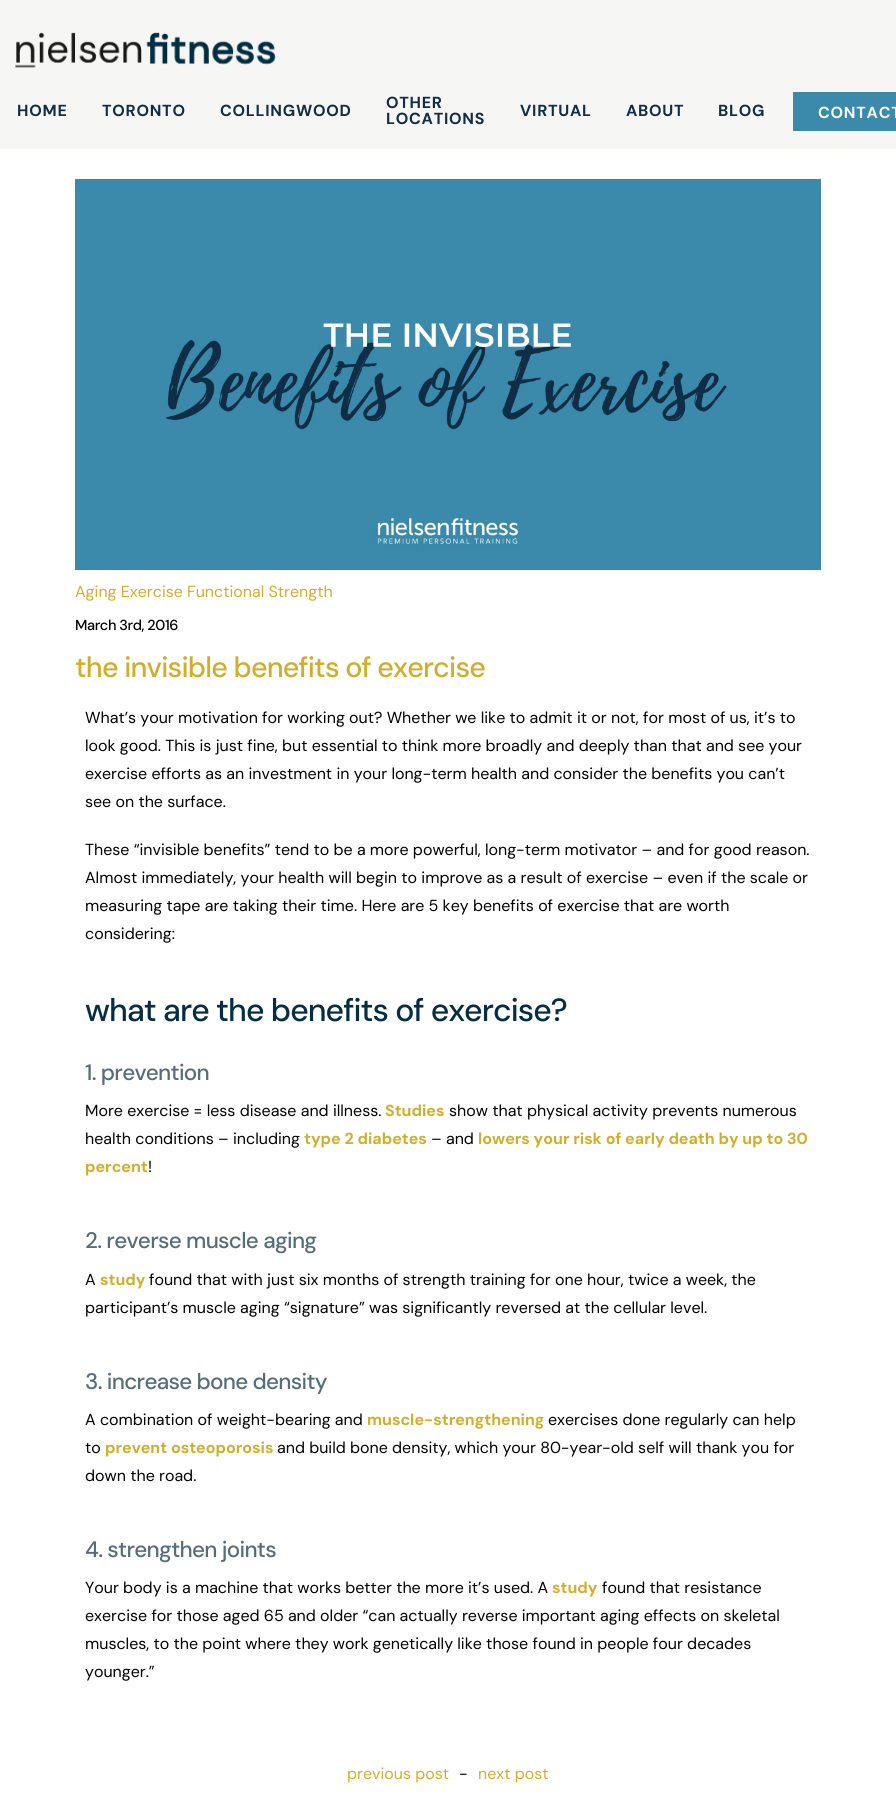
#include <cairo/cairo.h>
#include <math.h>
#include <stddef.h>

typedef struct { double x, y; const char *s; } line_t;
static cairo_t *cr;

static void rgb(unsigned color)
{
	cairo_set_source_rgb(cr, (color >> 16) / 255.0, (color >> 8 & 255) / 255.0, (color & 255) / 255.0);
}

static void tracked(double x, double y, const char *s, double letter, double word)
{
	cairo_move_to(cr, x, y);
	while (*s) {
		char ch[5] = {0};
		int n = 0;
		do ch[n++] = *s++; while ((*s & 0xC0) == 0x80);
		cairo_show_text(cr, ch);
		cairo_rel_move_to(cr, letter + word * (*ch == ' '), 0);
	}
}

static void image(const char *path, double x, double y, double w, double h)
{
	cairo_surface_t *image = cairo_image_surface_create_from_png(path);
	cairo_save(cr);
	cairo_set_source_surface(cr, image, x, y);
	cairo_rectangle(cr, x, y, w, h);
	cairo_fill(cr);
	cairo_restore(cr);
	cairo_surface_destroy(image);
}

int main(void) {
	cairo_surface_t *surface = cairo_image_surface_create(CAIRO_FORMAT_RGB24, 896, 1819);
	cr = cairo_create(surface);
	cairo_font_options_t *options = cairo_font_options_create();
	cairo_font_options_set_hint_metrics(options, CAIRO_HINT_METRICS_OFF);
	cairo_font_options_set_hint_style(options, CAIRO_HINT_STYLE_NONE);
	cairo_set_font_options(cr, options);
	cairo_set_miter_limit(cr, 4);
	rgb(0xffffff);
	cairo_paint(cr);
	rgb(0xf6f6f5);
	cairo_rectangle(cr, 0, 0, 896, 149);
	cairo_fill(cr);
	image("img/1.png", 15, 32, 261, 36);
	rgb(0x3b89ab);
	cairo_rectangle(cr, 793, 92, 103, 39);
	cairo_fill(cr);
	image("img/2.png", 75, 179, 746, 391);
	cairo_select_font_face(cr, "DM Sans", CAIRO_FONT_SLANT_NORMAL, CAIRO_FONT_WEIGHT_BOLD);
	cairo_set_font_size(cr, 16);
	rgb(0x102e45);
	{
		static const line_t items[] = {
			{17, 116, "HOME"},
			{102, 116, "TORONTO"},
			{220, 116, "COLLINGWOOD"},
			{386, 108, "OTHER"},
			{386, 124, "LOCATIONS"},
			{520, 116, "VIRTUAL"},
			{626, 116, "ABOUT"},
			{718, 116, "BLOG"},
		};
		for (size_t i = 0; i < sizeof items / sizeof *items; i++) {
			tracked(items[i].x, items[i].y, items[i].s, 0.75, 0);
		}
	}
	rgb(0xf6f6f5);
	tracked(818, 118, "CONTACT", 0.75, 0);
	cairo_select_font_face(cr, "DM Sans", CAIRO_FONT_SLANT_NORMAL, CAIRO_FONT_WEIGHT_NORMAL);
	rgb(0xd1ad2b);
	cairo_move_to(cr, 75, 597);
	cairo_show_text(cr, "Aging Exercise Functional Strength");
	cairo_select_font_face(cr, "DM Sans Medium", CAIRO_FONT_SLANT_NORMAL, CAIRO_FONT_WEIGHT_NORMAL);
	cairo_set_font_size(cr, 14.5);
	rgb(0x000000);
	tracked(75, 630, "March 3rd, 2016", -0.4, 0);
	cairo_set_font_size(cr, 28.75);
	rgb(0xd1ad2b);
	tracked(75, 677, "the invisible benefits of exercise", -0.85, 0);
	cairo_select_font_face(cr, "DM Sans", CAIRO_FONT_SLANT_NORMAL, CAIRO_FONT_WEIGHT_NORMAL);
	cairo_set_font_size(cr, 16);
	rgb(0x000000);
	{
		static const line_t items[] = {
			{85, 723, "What’s your motivation for working out? Whether we like to admit it or not, for most of us, it’s to"},
			{85, 751, "look good. This is just fine, but essential to think more broadly and deeply than that and see your"},
			{85, 779, "exercise efforts as an investment in your long-term health and consider the benefits you can’t"},
			{85, 807, "see on the surface."},
			{85, 855, "These “invisible benefits” tend to be a more powerful, long-term motivator – and for good reason."},
			{85, 883, "Almost immediately, your health will begin to improve as a result of exercise – even if the scale or"},
			{85, 911, "measuring tape are taking their time. Here are 5 key benefits of exercise that are worth"},
			{85, 939, "considering:"},
		};
		for (size_t i = 0; i < sizeof items / sizeof *items; i++) {
			cairo_move_to(cr, items[i].x, items[i].y);
			cairo_show_text(cr, items[i].s);
		}
	}
	cairo_select_font_face(cr, "DM Sans Medium", CAIRO_FONT_SLANT_NORMAL, CAIRO_FONT_WEIGHT_NORMAL);
	cairo_set_font_size(cr, 32);
	rgb(0x052d44);
	tracked(85, 1021, "what are the benefits of exercise?", -0.95, 0);
	cairo_set_font_size(cr, 22.4);
	rgb(0x556d7b);
	tracked(85, 1080, "1. prevention", -0.7, 0);
	cairo_select_font_face(cr, "DM Sans", CAIRO_FONT_SLANT_NORMAL, CAIRO_FONT_WEIGHT_NORMAL);
	cairo_set_font_size(cr, 16);
	rgb(0x000000);
	cairo_move_to(cr, 85, 1116);
	cairo_show_text(cr, "More exercise = less disease and illness.");
	cairo_select_font_face(cr, "DM Sans", CAIRO_FONT_SLANT_NORMAL, CAIRO_FONT_WEIGHT_BOLD);
	rgb(0xd1ad2b);
	cairo_move_to(cr, 385, 1116);
	cairo_show_text(cr, "Studies");
	cairo_select_font_face(cr, "DM Sans", CAIRO_FONT_SLANT_NORMAL, CAIRO_FONT_WEIGHT_NORMAL);
	rgb(0x000000);
	cairo_move_to(cr, 449, 1116);
	cairo_show_text(cr, "show that physical activity prevents numerous");
	cairo_move_to(cr, 85, 1144);
	cairo_show_text(cr, "health conditions – including");
	cairo_select_font_face(cr, "DM Sans", CAIRO_FONT_SLANT_NORMAL, CAIRO_FONT_WEIGHT_BOLD);
	rgb(0xd1ad2b);
	cairo_move_to(cr, 304, 1144);
	cairo_show_text(cr, "type 2 diabetes");
	cairo_select_font_face(cr, "DM Sans", CAIRO_FONT_SLANT_NORMAL, CAIRO_FONT_WEIGHT_NORMAL);
	rgb(0x000000);
	cairo_move_to(cr, 431, 1144);
	cairo_show_text(cr, "– and");
	cairo_select_font_face(cr, "DM Sans", CAIRO_FONT_SLANT_NORMAL, CAIRO_FONT_WEIGHT_BOLD);
	rgb(0xd1ad2b);
	cairo_move_to(cr, 478, 1144);
	cairo_show_text(cr, "lowers your risk of early death by up to 30");
	cairo_move_to(cr, 85, 1172);
	cairo_show_text(cr, "percent");
	cairo_select_font_face(cr, "DM Sans", CAIRO_FONT_SLANT_NORMAL, CAIRO_FONT_WEIGHT_NORMAL);
	rgb(0x000000);
	cairo_move_to(cr, 148, 1172);
	cairo_show_text(cr, "!");
	cairo_select_font_face(cr, "DM Sans Medium", CAIRO_FONT_SLANT_NORMAL, CAIRO_FONT_WEIGHT_NORMAL);
	cairo_set_font_size(cr, 22.4);
	rgb(0x556d7b);
	tracked(85, 1248, "2. reverse muscle aging", -0.7, 0);
	cairo_select_font_face(cr, "DM Sans", CAIRO_FONT_SLANT_NORMAL, CAIRO_FONT_WEIGHT_NORMAL);
	cairo_set_font_size(cr, 16);
	rgb(0x000000);
	cairo_move_to(cr, 85, 1285);
	cairo_show_text(cr, "A");
	cairo_select_font_face(cr, "DM Sans", CAIRO_FONT_SLANT_NORMAL, CAIRO_FONT_WEIGHT_BOLD);
	rgb(0xd1ad2b);
	cairo_move_to(cr, 100, 1285);
	cairo_show_text(cr, "study");
	cairo_select_font_face(cr, "DM Sans", CAIRO_FONT_SLANT_NORMAL, CAIRO_FONT_WEIGHT_NORMAL);
	rgb(0x000000);
	cairo_move_to(cr, 149, 1285);
	cairo_show_text(cr, "found that with just six months of strength training for one hour, twice a week, the");
	cairo_move_to(cr, 85, 1313);
	cairo_show_text(cr, "participant’s muscle aging “signature” was significantly reversed at the cellular level.");
	cairo_select_font_face(cr, "DM Sans Medium", CAIRO_FONT_SLANT_NORMAL, CAIRO_FONT_WEIGHT_NORMAL);
	cairo_set_font_size(cr, 22.4);
	rgb(0x556d7b);
	tracked(85, 1389, "3. increase bone density", -0.7, 0);
	cairo_select_font_face(cr, "DM Sans", CAIRO_FONT_SLANT_NORMAL, CAIRO_FONT_WEIGHT_NORMAL);
	cairo_set_font_size(cr, 16);
	rgb(0x000000);
	cairo_move_to(cr, 85, 1425);
	cairo_show_text(cr, "A combination of weight-bearing and");
	cairo_select_font_face(cr, "DM Sans", CAIRO_FONT_SLANT_NORMAL, CAIRO_FONT_WEIGHT_BOLD);
	rgb(0xd1ad2b);
	cairo_move_to(cr, 367, 1425);
	cairo_show_text(cr, "muscle-strengthening");
	cairo_select_font_face(cr, "DM Sans", CAIRO_FONT_SLANT_NORMAL, CAIRO_FONT_WEIGHT_NORMAL);
	rgb(0x000000);
	cairo_move_to(cr, 548, 1425);
	cairo_show_text(cr, "exercises done regularly can help");
	cairo_move_to(cr, 85, 1453);
	cairo_show_text(cr, "to");
	cairo_select_font_face(cr, "DM Sans", CAIRO_FONT_SLANT_NORMAL, CAIRO_FONT_WEIGHT_BOLD);
	rgb(0xd1ad2b);
	cairo_move_to(cr, 105, 1453);
	cairo_show_text(cr, "prevent osteoporosis");
	cairo_select_font_face(cr, "DM Sans", CAIRO_FONT_SLANT_NORMAL, CAIRO_FONT_WEIGHT_NORMAL);
	rgb(0x000000);
	cairo_move_to(cr, 277, 1453);
	cairo_show_text(cr, "and build bone density, which your 80-year-old self will thank you for");
	cairo_move_to(cr, 85, 1481);
	cairo_show_text(cr, "down the road.");
	cairo_select_font_face(cr, "DM Sans Medium", CAIRO_FONT_SLANT_NORMAL, CAIRO_FONT_WEIGHT_NORMAL);
	cairo_set_font_size(cr, 22.4);
	rgb(0x556d7b);
	tracked(85, 1557, "4. strengthen joints", -0.7, 0);
	cairo_select_font_face(cr, "DM Sans", CAIRO_FONT_SLANT_NORMAL, CAIRO_FONT_WEIGHT_NORMAL);
	cairo_set_font_size(cr, 16);
	rgb(0x000000);
	cairo_move_to(cr, 85, 1593);
	cairo_show_text(cr, "Your body is a machine that works better the more it’s used. A");
	cairo_select_font_face(cr, "DM Sans", CAIRO_FONT_SLANT_NORMAL, CAIRO_FONT_WEIGHT_BOLD);
	rgb(0xd1ad2b);
	cairo_move_to(cr, 552, 1593);
	cairo_show_text(cr, "study");
	cairo_select_font_face(cr, "DM Sans", CAIRO_FONT_SLANT_NORMAL, CAIRO_FONT_WEIGHT_NORMAL);
	rgb(0x000000);
	{
		static const line_t items[] = {
			{602, 1593, "found that resistance"},
			{85, 1621, "exercise for those aged 65 and older “can actually reverse important aging effects on skeletal"},
			{85, 1649, "muscles, to the point where they work genetically like those found in people four decades"},
			{85, 1677, "younger.”"},
		};
		for (size_t i = 0; i < sizeof items / sizeof *items; i++) {
			cairo_move_to(cr, items[i].x, items[i].y);
			cairo_show_text(cr, items[i].s);
		}
	}
	rgb(0xd1ad2b);
	cairo_move_to(cr, 347, 1779);
	cairo_show_text(cr, "previous post");
	rgb(0x000000);
	cairo_move_to(cr, 459, 1779);
	cairo_show_text(cr, "-");
	rgb(0xd1ad2b);
	cairo_move_to(cr, 478, 1779);
	cairo_show_text(cr, "next post");
	cairo_surface_write_to_png(surface, "page.png");
	cairo_font_options_destroy(options);
	cairo_destroy(cr);
	cairo_surface_destroy(surface);
	return 0;
}
